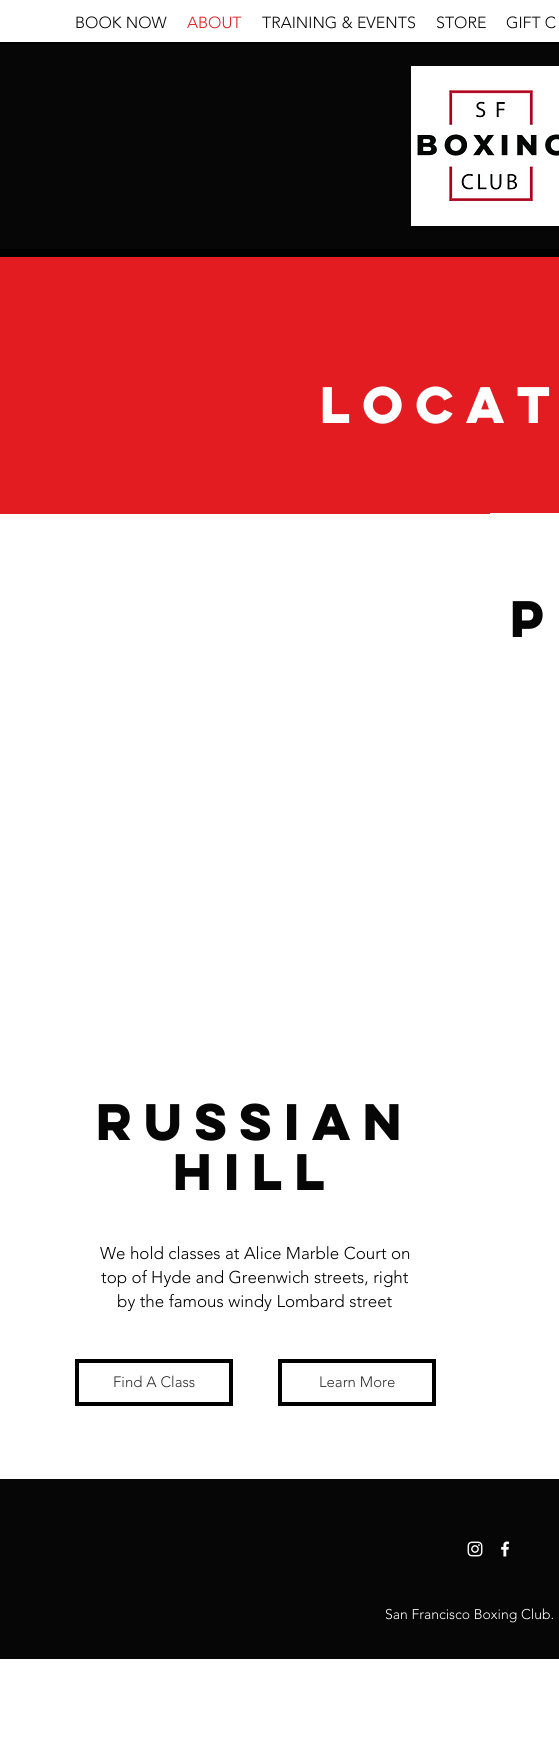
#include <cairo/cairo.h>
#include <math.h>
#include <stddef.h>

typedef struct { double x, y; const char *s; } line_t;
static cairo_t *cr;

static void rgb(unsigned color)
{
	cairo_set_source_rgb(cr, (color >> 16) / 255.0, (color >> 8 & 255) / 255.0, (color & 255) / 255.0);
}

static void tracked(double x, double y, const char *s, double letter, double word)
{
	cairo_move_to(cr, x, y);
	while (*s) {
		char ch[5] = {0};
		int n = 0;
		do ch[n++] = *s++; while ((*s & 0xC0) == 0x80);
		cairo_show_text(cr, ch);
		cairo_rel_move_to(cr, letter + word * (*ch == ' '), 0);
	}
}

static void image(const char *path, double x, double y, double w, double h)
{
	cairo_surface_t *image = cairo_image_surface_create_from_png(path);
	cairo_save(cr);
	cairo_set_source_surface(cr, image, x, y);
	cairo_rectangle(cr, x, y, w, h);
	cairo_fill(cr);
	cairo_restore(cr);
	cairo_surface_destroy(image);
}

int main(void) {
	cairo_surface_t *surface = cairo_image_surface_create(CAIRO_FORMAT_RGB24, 559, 1742);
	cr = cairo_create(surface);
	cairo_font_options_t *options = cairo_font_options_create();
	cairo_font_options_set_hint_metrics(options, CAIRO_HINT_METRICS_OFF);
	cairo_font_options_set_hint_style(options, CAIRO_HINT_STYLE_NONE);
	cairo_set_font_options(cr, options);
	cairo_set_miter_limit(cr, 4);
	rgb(0xffffff);
	cairo_paint(cr);
	rgb(0x000000);
	cairo_rectangle(cr, 0, 42, 559, 215);
	cairo_fill(cr);
	rgb(0x060606);
	cairo_rectangle(cr, 0, 44, 559, 205);
	cairo_fill(cr);
	image("img/1.png", 411, 66, 148, 160);
	rgb(0xe21c21);
	cairo_rectangle(cr, 0, 257, 559, 257);
	cairo_fill(cr);
	rgb(0xffffff);
	cairo_rectangle(cr, 490, 513, 69, 1);
	cairo_fill(cr);
	cairo_rectangle(cr, 77, 1361, 154, 43);
	rgb(0x000000);
	cairo_set_line_width(cr, 4);
	cairo_stroke(cr);
	cairo_rectangle(cr, 280, 1361, 154, 43);
	cairo_stroke(cr);
	rgb(0x060606);
	cairo_rectangle(cr, 0, 1479, 559, 180);
	cairo_fill(cr);
	image("img/2.png", 467, 1541, 16, 16);
	image("img/3.png", 501, 1541, 9, 16);
	cairo_select_font_face(cr, "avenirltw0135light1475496 Light", CAIRO_FONT_SLANT_NORMAL, CAIRO_FONT_WEIGHT_NORMAL);
	cairo_set_font_size(cr, 16);
	cairo_move_to(cr, 75, 28);
	cairo_show_text(cr, "BOOK NOW");
	rgb(0xe21c21);
	cairo_move_to(cr, 187, 28);
	cairo_show_text(cr, "ABOUT");
	rgb(0x060606);
	{
		static const line_t items[] = {
			{262, 28, "TRAINING & EVENTS"},
			{436, 28, "STORE"},
			{506, 28, "GIFT C"},
		};
		for (size_t i = 0; i < sizeof items / sizeof *items; i++) {
			cairo_move_to(cr, items[i].x, items[i].y);
			cairo_show_text(cr, items[i].s);
		}
	}
	cairo_select_font_face(cr, "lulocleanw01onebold", CAIRO_FONT_SLANT_NORMAL, CAIRO_FONT_WEIGHT_BOLD);
	cairo_set_font_size(cr, 46);
	rgb(0xffffff);
	tracked(320, 423, "LOCAT", 2.25, 0);
	rgb(0x060606);
	{
		static const line_t items[] = {
			{510, 637, "P"},
			{96, 1140, "RUSSIAN"},
			{173, 1190, "HILL"},
		};
		for (size_t i = 0; i < sizeof items / sizeof *items; i++) {
			tracked(items[i].x, items[i].y, items[i].s, 2.25, 0);
		}
	}
	cairo_select_font_face(cr, "avenirltw0135light1475496 Light", CAIRO_FONT_SLANT_NORMAL, CAIRO_FONT_WEIGHT_NORMAL);
	cairo_set_font_size(cr, 17);
	rgb(0x000000);
	{
		static const line_t items[] = {
			{100, 1259, "We hold classes at Alice Marble Court on"},
			{101, 1283, "top of Hyde and Greenwich streets, right"},
			{117, 1307, "by the famous windy Lombard street"},
		};
		for (size_t i = 0; i < sizeof items / sizeof *items; i++) {
			cairo_move_to(cr, items[i].x, items[i].y);
			cairo_show_text(cr, items[i].s);
		}
	}
	cairo_set_font_size(cr, 15);
	rgb(0x2f2e2e);
	cairo_move_to(cr, 113, 1387);
	cairo_show_text(cr, "Find A Class");
	cairo_move_to(cr, 319, 1387);
	cairo_show_text(cr, "Learn More");
	cairo_set_font_size(cr, 14);
	rgb(0xffffff);
	cairo_move_to(cr, 385, 1619);
	cairo_show_text(cr, "San Francisco Boxing Club.");
	cairo_surface_write_to_png(surface, "page.png");
	cairo_font_options_destroy(options);
	cairo_destroy(cr);
	cairo_surface_destroy(surface);
	return 0;
}
